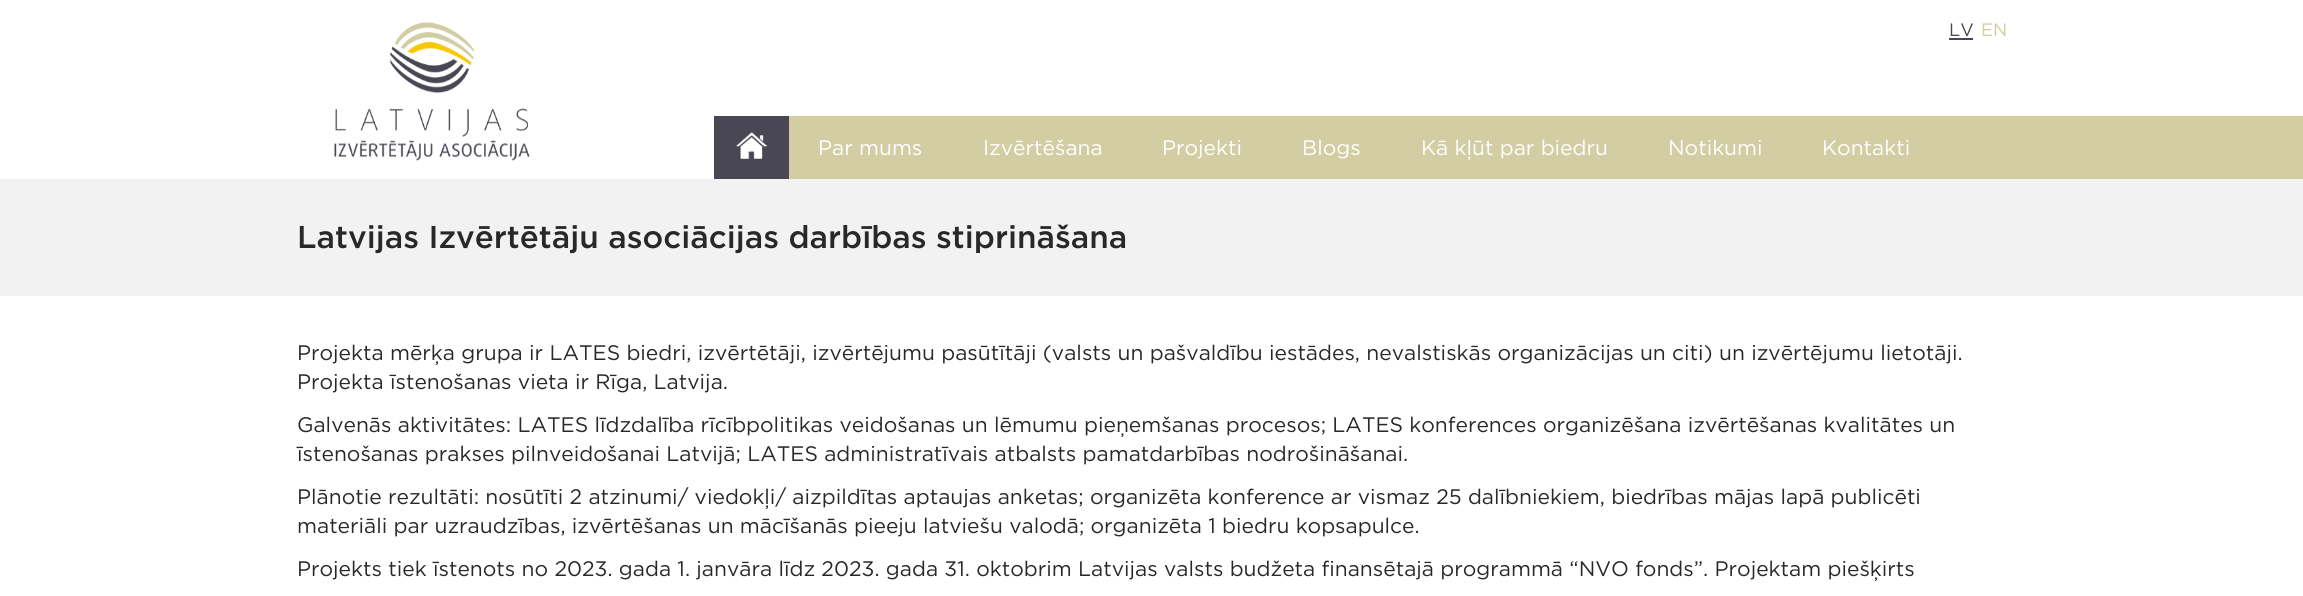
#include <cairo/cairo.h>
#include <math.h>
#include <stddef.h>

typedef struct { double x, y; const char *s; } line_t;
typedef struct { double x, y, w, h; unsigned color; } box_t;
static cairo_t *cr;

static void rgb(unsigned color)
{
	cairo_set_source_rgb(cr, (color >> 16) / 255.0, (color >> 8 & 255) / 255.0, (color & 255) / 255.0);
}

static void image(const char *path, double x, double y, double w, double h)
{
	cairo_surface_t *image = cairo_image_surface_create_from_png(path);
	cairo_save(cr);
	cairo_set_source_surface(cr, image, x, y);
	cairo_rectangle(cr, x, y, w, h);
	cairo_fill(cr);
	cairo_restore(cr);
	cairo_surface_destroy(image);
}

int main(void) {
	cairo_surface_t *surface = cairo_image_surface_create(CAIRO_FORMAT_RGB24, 2303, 596);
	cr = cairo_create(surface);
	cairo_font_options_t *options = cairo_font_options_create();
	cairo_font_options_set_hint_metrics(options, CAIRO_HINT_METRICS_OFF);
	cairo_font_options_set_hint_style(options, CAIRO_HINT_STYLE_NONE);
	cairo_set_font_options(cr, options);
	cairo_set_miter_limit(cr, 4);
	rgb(0xffffff);
	cairo_paint(cr);
	rgb(0xf1f1f1);
	cairo_rectangle(cr, 0, 179, 2303, 1);
	cairo_fill(cr);
	image("img/1.png", 334, 22, 196, 139);
	{
		static const box_t items[] = {
			{1949, 38, 24, 2, 0x494753},
			{789, 116, 1514, 63, 0xd2cda2},
			{714, 116, 75, 63, 0x494753},
		};
		for (size_t i = 0; i < sizeof items / sizeof *items; i++) {
			rgb(items[i].color);
			cairo_rectangle(cr, items[i].x, items[i].y, items[i].w, items[i].h);
			cairo_fill(cr);
		}
	}
	image("img/2.png", 736, 132, 31, 27);
	rgb(0xf2f2f2);
	cairo_rectangle(cr, 0, 180, 2303, 116);
	cairo_fill(cr);
	cairo_select_font_face(cr, "Gotham", CAIRO_FONT_SLANT_NORMAL, CAIRO_FONT_WEIGHT_NORMAL);
	cairo_set_font_size(cr, 18);
	rgb(0x494753);
	cairo_move_to(cr, 1949, 36);
	cairo_show_text(cr, "LV");
	rgb(0xd2cda2);
	cairo_move_to(cr, 1981, 36);
	cairo_show_text(cr, "EN");
	cairo_set_font_size(cr, 21);
	rgb(0xffffff);
	{
		static const line_t items[] = {
			{818, 155, "Par mums"},
			{983, 155, "Izvērtēšana"},
			{1162, 155, "Projekti"},
			{1302, 155, "Blogs"},
			{1421, 155, "Kā kļūt par biedru"},
			{1668, 155, "Notikumi"},
			{1822, 155, "Kontakti"},
		};
		for (size_t i = 0; i < sizeof items / sizeof *items; i++) {
			cairo_move_to(cr, items[i].x, items[i].y);
			cairo_show_text(cr, items[i].s);
		}
	}
	cairo_select_font_face(cr, "Gotham Medium", CAIRO_FONT_SLANT_NORMAL, CAIRO_FONT_WEIGHT_NORMAL);
	cairo_set_font_size(cr, 31.5);
	rgb(0x282828);
	cairo_move_to(cr, 297, 248);
	cairo_show_text(cr, "Latvijas Izvērtētāju asociācijas darbības stiprināšana");
	cairo_select_font_face(cr, "Gotham", CAIRO_FONT_SLANT_NORMAL, CAIRO_FONT_WEIGHT_NORMAL);
	cairo_set_font_size(cr, 21);
	{
		static const line_t items[] = {
			{297, 360, "Projekta mērķa grupa ir LATES biedri, izvērtētāji, izvērtējumu pasūtītāji (valsts un pašvaldību iestādes, nevalstiskās organizācijas un citi) un izvērtējumu lietotāji."},
			{297, 389, "Projekta īstenošanas vieta ir Rīga, Latvija."},
			{297, 432, "Galvenās aktivitātes: LATES līdzdalība rīcībpolitikas veidošanas un lēmumu pieņemšanas procesos; LATES konferences organizēšana izvērtēšanas kvalitātes un"},
			{297, 461, "īstenošanas prakses pilnveidošanai Latvijā; LATES administratīvais atbalsts pamatdarbības nodrošināšanai."},
			{297, 504, "Plānotie rezultāti: nosūtīti 2 atzinumi/ viedokļi/ aizpildītas aptaujas anketas; organizēta konference ar vismaz 25 dalībniekiem, biedrības mājas lapā publicēti"},
			{297, 533, "materiāli par uzraudzības, izvērtēšanas un mācīšanās pieeju latviešu valodā; organizēta 1 biedru kopsapulce."},
			{297, 576, "Projekts tiek īstenots no 2023. gada 1. janvāra līdz 2023. gada 31. oktobrim Latvijas valsts budžeta finansētajā programmā “NVO fonds”. Projektam piešķirts"},
		};
		for (size_t i = 0; i < sizeof items / sizeof *items; i++) {
			cairo_move_to(cr, items[i].x, items[i].y);
			cairo_show_text(cr, items[i].s);
		}
	}
	cairo_surface_write_to_png(surface, "page.png");
	cairo_font_options_destroy(options);
	cairo_destroy(cr);
	cairo_surface_destroy(surface);
	return 0;
}
